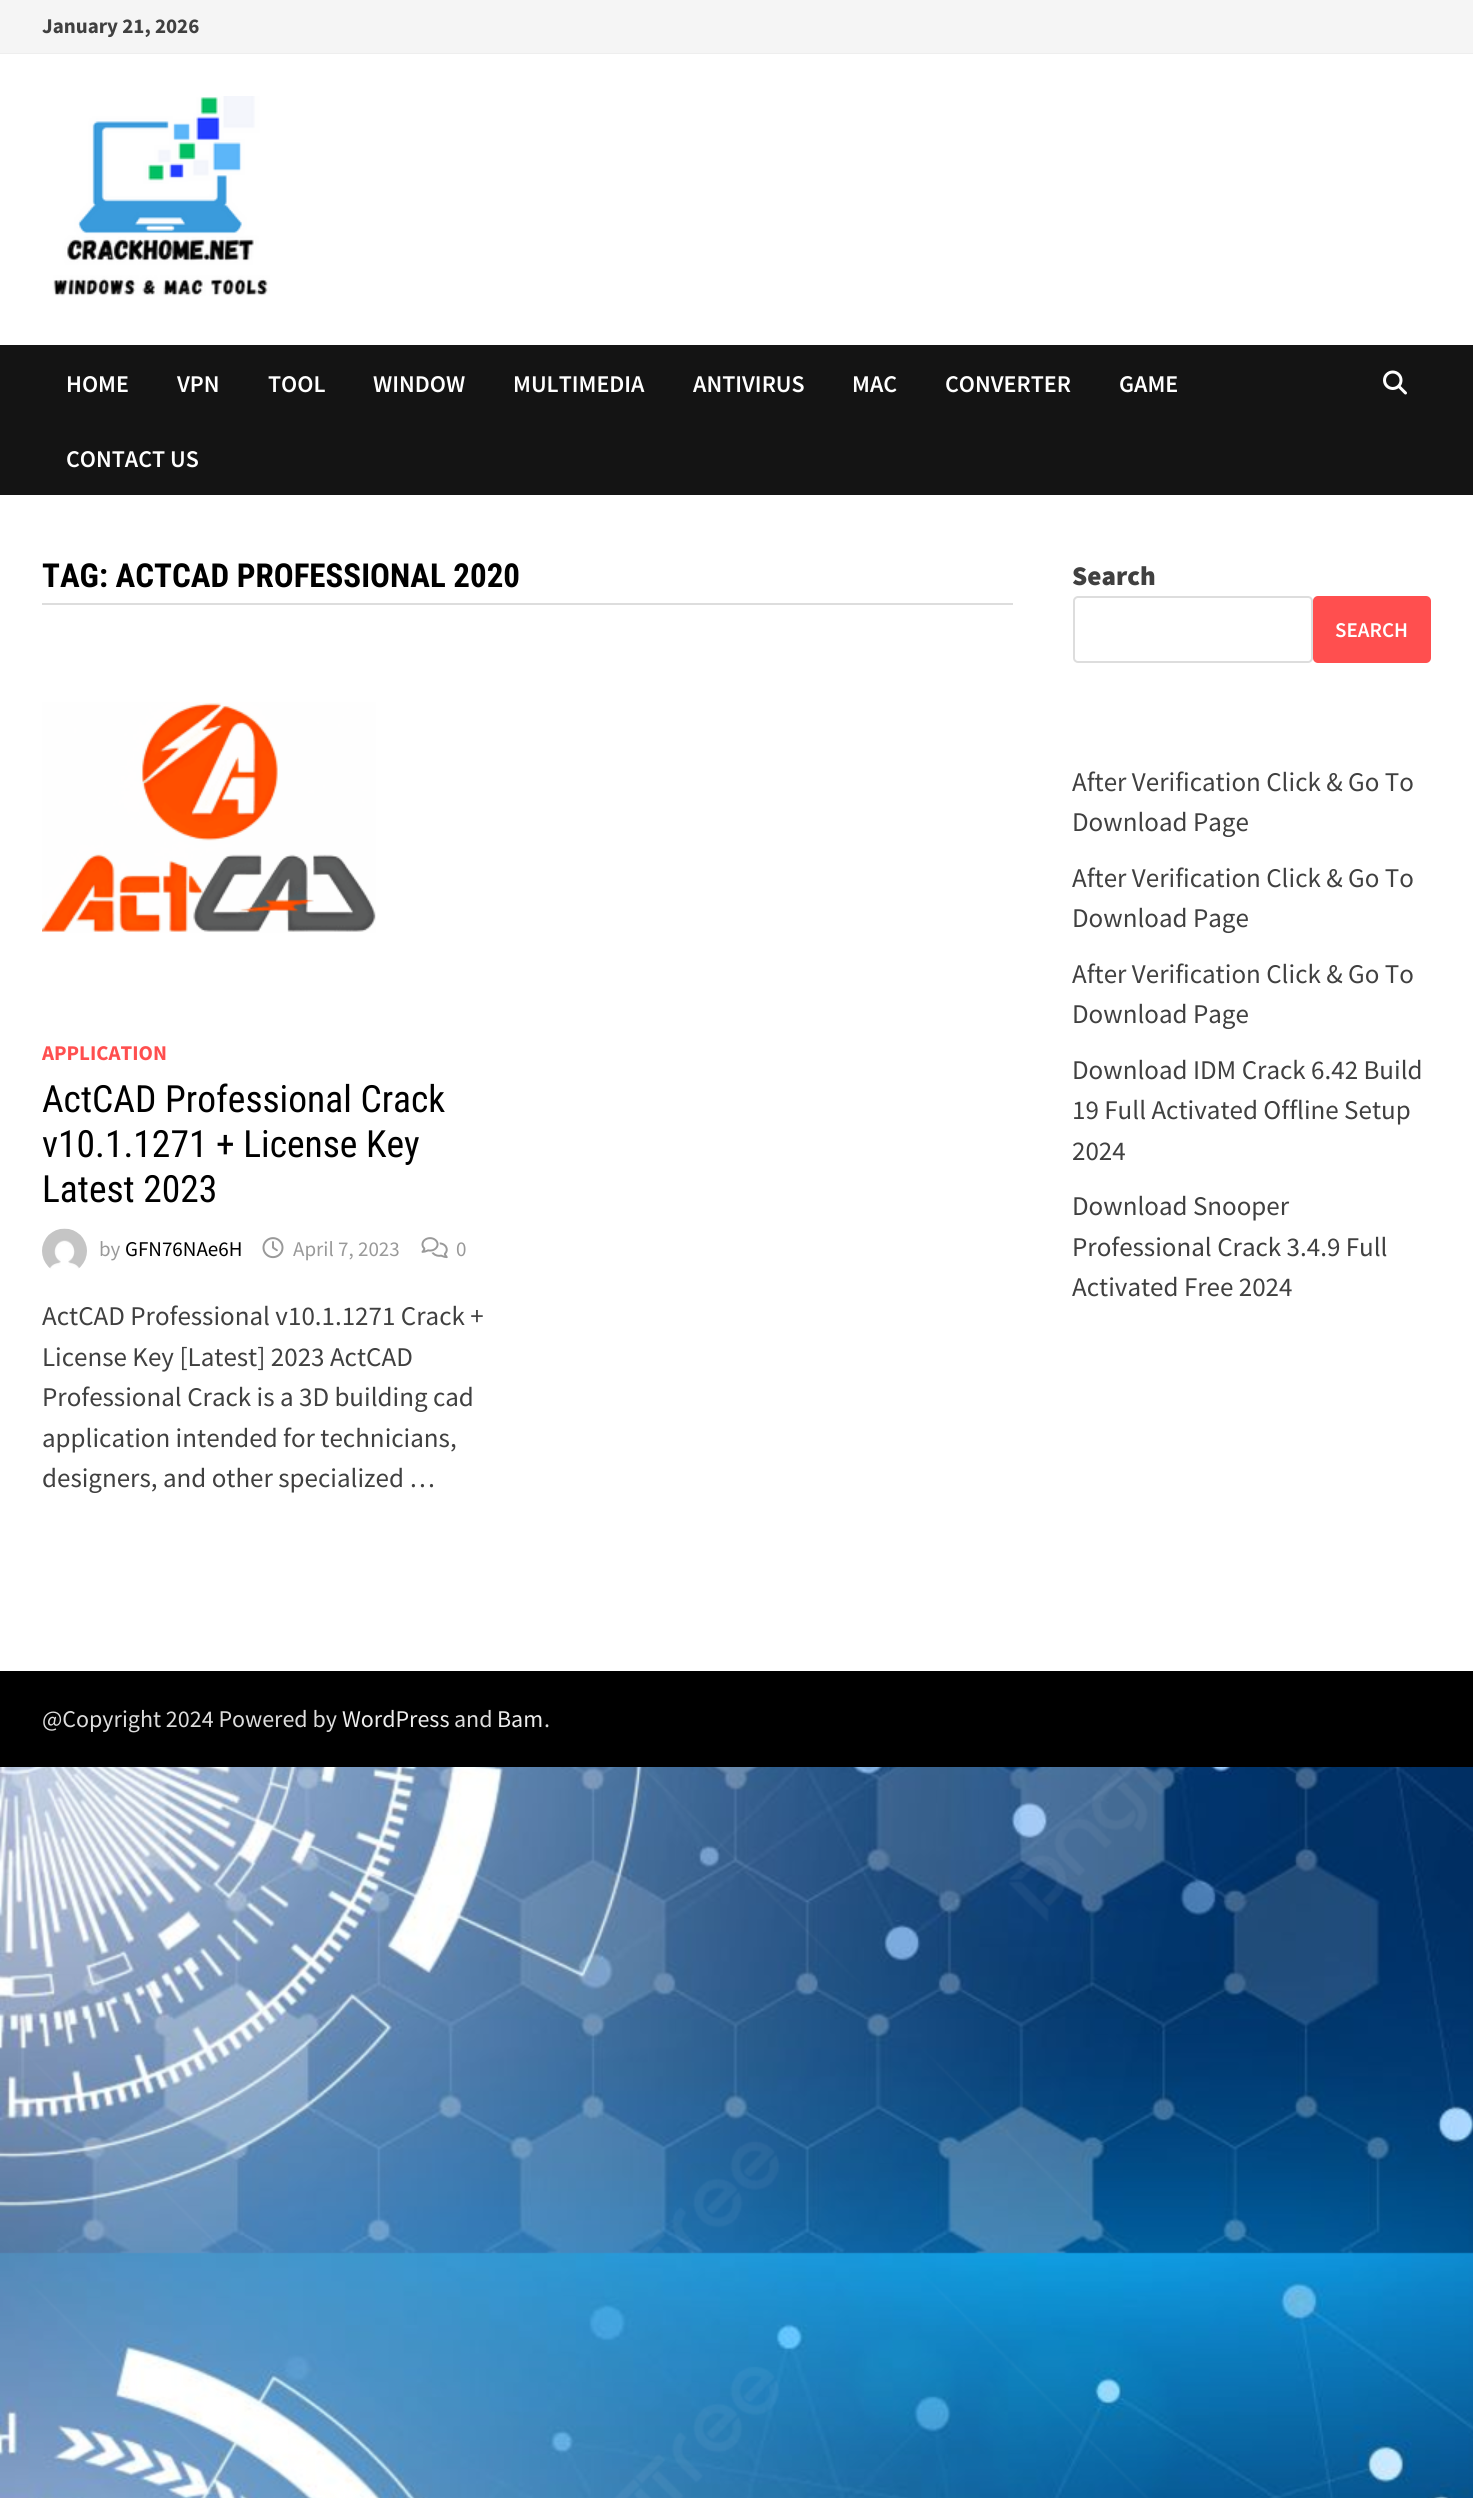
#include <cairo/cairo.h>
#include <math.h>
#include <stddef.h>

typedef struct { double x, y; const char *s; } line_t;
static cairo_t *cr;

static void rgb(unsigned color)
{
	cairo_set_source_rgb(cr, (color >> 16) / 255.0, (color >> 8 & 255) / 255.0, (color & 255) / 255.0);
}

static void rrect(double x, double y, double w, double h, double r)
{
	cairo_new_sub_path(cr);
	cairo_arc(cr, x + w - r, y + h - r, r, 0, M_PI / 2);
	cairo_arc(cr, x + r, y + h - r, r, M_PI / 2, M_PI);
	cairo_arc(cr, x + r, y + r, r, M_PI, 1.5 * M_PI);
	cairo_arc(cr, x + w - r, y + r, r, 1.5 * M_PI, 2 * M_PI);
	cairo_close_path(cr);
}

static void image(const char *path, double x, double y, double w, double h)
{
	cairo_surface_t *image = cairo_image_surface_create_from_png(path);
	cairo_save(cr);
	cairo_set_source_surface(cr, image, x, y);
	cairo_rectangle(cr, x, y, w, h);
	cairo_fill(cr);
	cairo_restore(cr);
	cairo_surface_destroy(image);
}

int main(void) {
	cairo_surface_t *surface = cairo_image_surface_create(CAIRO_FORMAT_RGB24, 1473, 2498);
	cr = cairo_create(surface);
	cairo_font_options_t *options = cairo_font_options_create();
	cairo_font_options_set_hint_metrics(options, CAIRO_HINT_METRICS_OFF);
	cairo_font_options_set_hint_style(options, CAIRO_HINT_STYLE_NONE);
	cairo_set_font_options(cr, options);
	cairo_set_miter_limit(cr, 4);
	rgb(0xffffff);
	cairo_paint(cr);
	image("img/1.png", 0, 1767, 1473, 731);
	rgb(0xf5f5f5);
	cairo_rectangle(cr, 0, 0, 1473, 53);
	cairo_fill(cr);
	rgb(0xeeeeee);
	cairo_rectangle(cr, 0, 53, 1473, 1);
	cairo_fill(cr);
	image("img/2.png", 53, 96, 217, 200);
	rgb(0x141414);
	cairo_rectangle(cr, 0, 345, 1473, 150);
	cairo_fill(cr);
	image("img/3.png", 1383, 370, 24, 25);
	rgb(0xdddddd);
	cairo_rectangle(cr, 42, 603, 971, 2);
	cairo_fill(cr);
	image("img/4.png", 42, 702, 334, 231);
	image("img/5.png", 42, 1228, 45, 41);
	image("img/6.png", 262, 1237, 22, 22);
	image("img/7.png", 421, 1237, 27, 22);
	rrect(1074, 597, 238, 65, 4);
	cairo_stroke(cr);
	rgb(0xff4f4f);
	rrect(1313, 596, 118, 67, 5);
	cairo_fill(cr);
	rgb(0x000000);
	cairo_rectangle(cr, 0, 1671, 1473, 96);
	cairo_fill(cr);
	cairo_select_font_face(cr, "Source Sans Pro", CAIRO_FONT_SLANT_NORMAL, CAIRO_FONT_WEIGHT_BOLD);
	cairo_set_font_size(cr, 21);
	rgb(0x404040);
	cairo_move_to(cr, 42, 33);
	cairo_show_text(cr, "January 21, 2026");
	cairo_select_font_face(cr, "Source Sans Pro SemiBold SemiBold", CAIRO_FONT_SLANT_NORMAL, CAIRO_FONT_WEIGHT_NORMAL);
	cairo_set_font_size(cr, 24);
	rgb(0xffffff);
	{
		static const line_t items[] = {
			{66, 392, "HOME"},
			{177, 392, "VPN"},
			{268, 392, "TOOL"},
			{373, 392, "WINDOW"},
			{513, 392, "MULTIMEDIA"},
			{693, 392, "ANTIVIRUS"},
			{852, 392, "MAC"},
			{945, 392, "CONVERTER"},
			{1119, 392, "GAME"},
			{66, 467, "CONTACT US"},
		};
		for (size_t i = 0; i < sizeof items / sizeof *items; i++) {
			cairo_move_to(cr, items[i].x, items[i].y);
			cairo_show_text(cr, items[i].s);
		}
	}
	cairo_select_font_face(cr, "Roboto Condensed", CAIRO_FONT_SLANT_NORMAL, CAIRO_FONT_WEIGHT_BOLD);
	cairo_set_font_size(cr, 33);
	rgb(0x000000);
	cairo_move_to(cr, 42, 587);
	cairo_show_text(cr, "TAG: ACTCAD PROFESSIONAL 2020");
	cairo_select_font_face(cr, "Source Sans Pro", CAIRO_FONT_SLANT_NORMAL, CAIRO_FONT_WEIGHT_BOLD);
	cairo_set_font_size(cr, 21);
	rgb(0xff4f4f);
	cairo_move_to(cr, 42, 1060);
	cairo_show_text(cr, "APPLICATION");
	cairo_select_font_face(cr, "Roboto Condensed", CAIRO_FONT_SLANT_NORMAL, CAIRO_FONT_WEIGHT_NORMAL);
	cairo_set_font_size(cr, 37.5);
	rgb(0x000000);
	{
		static const line_t items[] = {
			{42, 1112, "ActCAD Professional Crack"},
			{42, 1157, "v10.1.1271 + License Key"},
			{42, 1202, "Latest 2023"},
		};
		for (size_t i = 0; i < sizeof items / sizeof *items; i++) {
			cairo_move_to(cr, items[i].x, items[i].y);
			cairo_show_text(cr, items[i].s);
		}
	}
	cairo_select_font_face(cr, "Source Sans Pro", CAIRO_FONT_SLANT_NORMAL, CAIRO_FONT_WEIGHT_NORMAL);
	cairo_set_font_size(cr, 21);
	rgb(0x999999);
	cairo_move_to(cr, 99, 1256);
	cairo_show_text(cr, "by");
	rgb(0x000000);
	cairo_move_to(cr, 125, 1256);
	cairo_show_text(cr, "GFN76NAe6H");
	rgb(0x999999);
	cairo_move_to(cr, 293, 1256);
	cairo_show_text(cr, "April 7, 2023");
	cairo_move_to(cr, 456, 1256);
	cairo_show_text(cr, "0");
	cairo_set_font_size(cr, 27);
	rgb(0x404040);
	{
		static const line_t items[] = {
			{42, 1325, "ActCAD Professional v10.1.1271 Crack +"},
			{42, 1366, "License Key [Latest] 2023 ActCAD"},
			{42, 1406, "Professional Crack is a 3D building cad"},
			{42, 1447, "application intended for technicians,"},
			{42, 1487, "designers, and other specialized …"},
		};
		for (size_t i = 0; i < sizeof items / sizeof *items; i++) {
			cairo_move_to(cr, items[i].x, items[i].y);
			cairo_show_text(cr, items[i].s);
		}
	}
	cairo_select_font_face(cr, "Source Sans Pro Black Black", CAIRO_FONT_SLANT_NORMAL, CAIRO_FONT_WEIGHT_NORMAL);
	cairo_move_to(cr, 1072, 585);
	cairo_show_text(cr, "Search");
	cairo_select_font_face(cr, "Source Sans Pro SemiBold SemiBold", CAIRO_FONT_SLANT_NORMAL, CAIRO_FONT_WEIGHT_NORMAL);
	cairo_set_font_size(cr, 21);
	rgb(0xffffff);
	cairo_move_to(cr, 1335, 637);
	cairo_show_text(cr, "SEARCH");
	cairo_select_font_face(cr, "Source Sans Pro", CAIRO_FONT_SLANT_NORMAL, CAIRO_FONT_WEIGHT_NORMAL);
	cairo_set_font_size(cr, 27);
	rgb(0x404040);
	{
		static const line_t items[] = {
			{1072, 791, "After Verification Click & Go To"},
			{1072, 831, "Download Page"},
			{1072, 887, "After Verification Click & Go To"},
			{1072, 927, "Download Page"},
			{1072, 983, "After Verification Click & Go To"},
			{1072, 1023, "Download Page"},
			{1072, 1079, "Download IDM Crack 6.42 Build"},
			{1072, 1119, "19 Full Activated Offline Setup"},
			{1072, 1160, "2024"},
			{1072, 1215, "Download Snooper"},
			{1072, 1256, "Professional Crack 3.4.9 Full"},
			{1072, 1296, "Activated Free 2024"},
		};
		for (size_t i = 0; i < sizeof items / sizeof *items; i++) {
			cairo_move_to(cr, items[i].x, items[i].y);
			cairo_show_text(cr, items[i].s);
		}
	}
	cairo_set_font_size(cr, 24);
	rgb(0xdddddd);
	cairo_move_to(cr, 42, 1727);
	cairo_show_text(cr, "@Copyright 2024 Powered by");
	rgb(0xeeeeee);
	cairo_move_to(cr, 342, 1727);
	cairo_show_text(cr, "WordPress");
	rgb(0xdddddd);
	cairo_move_to(cr, 454, 1727);
	cairo_show_text(cr, "and");
	rgb(0xeeeeee);
	cairo_move_to(cr, 497, 1727);
	cairo_show_text(cr, "Bam");
	rgb(0xdddddd);
	cairo_move_to(cr, 544, 1727);
	cairo_show_text(cr, ".");
	cairo_surface_write_to_png(surface, "page.png");
	cairo_font_options_destroy(options);
	cairo_destroy(cr);
	cairo_surface_destroy(surface);
	return 0;
}
